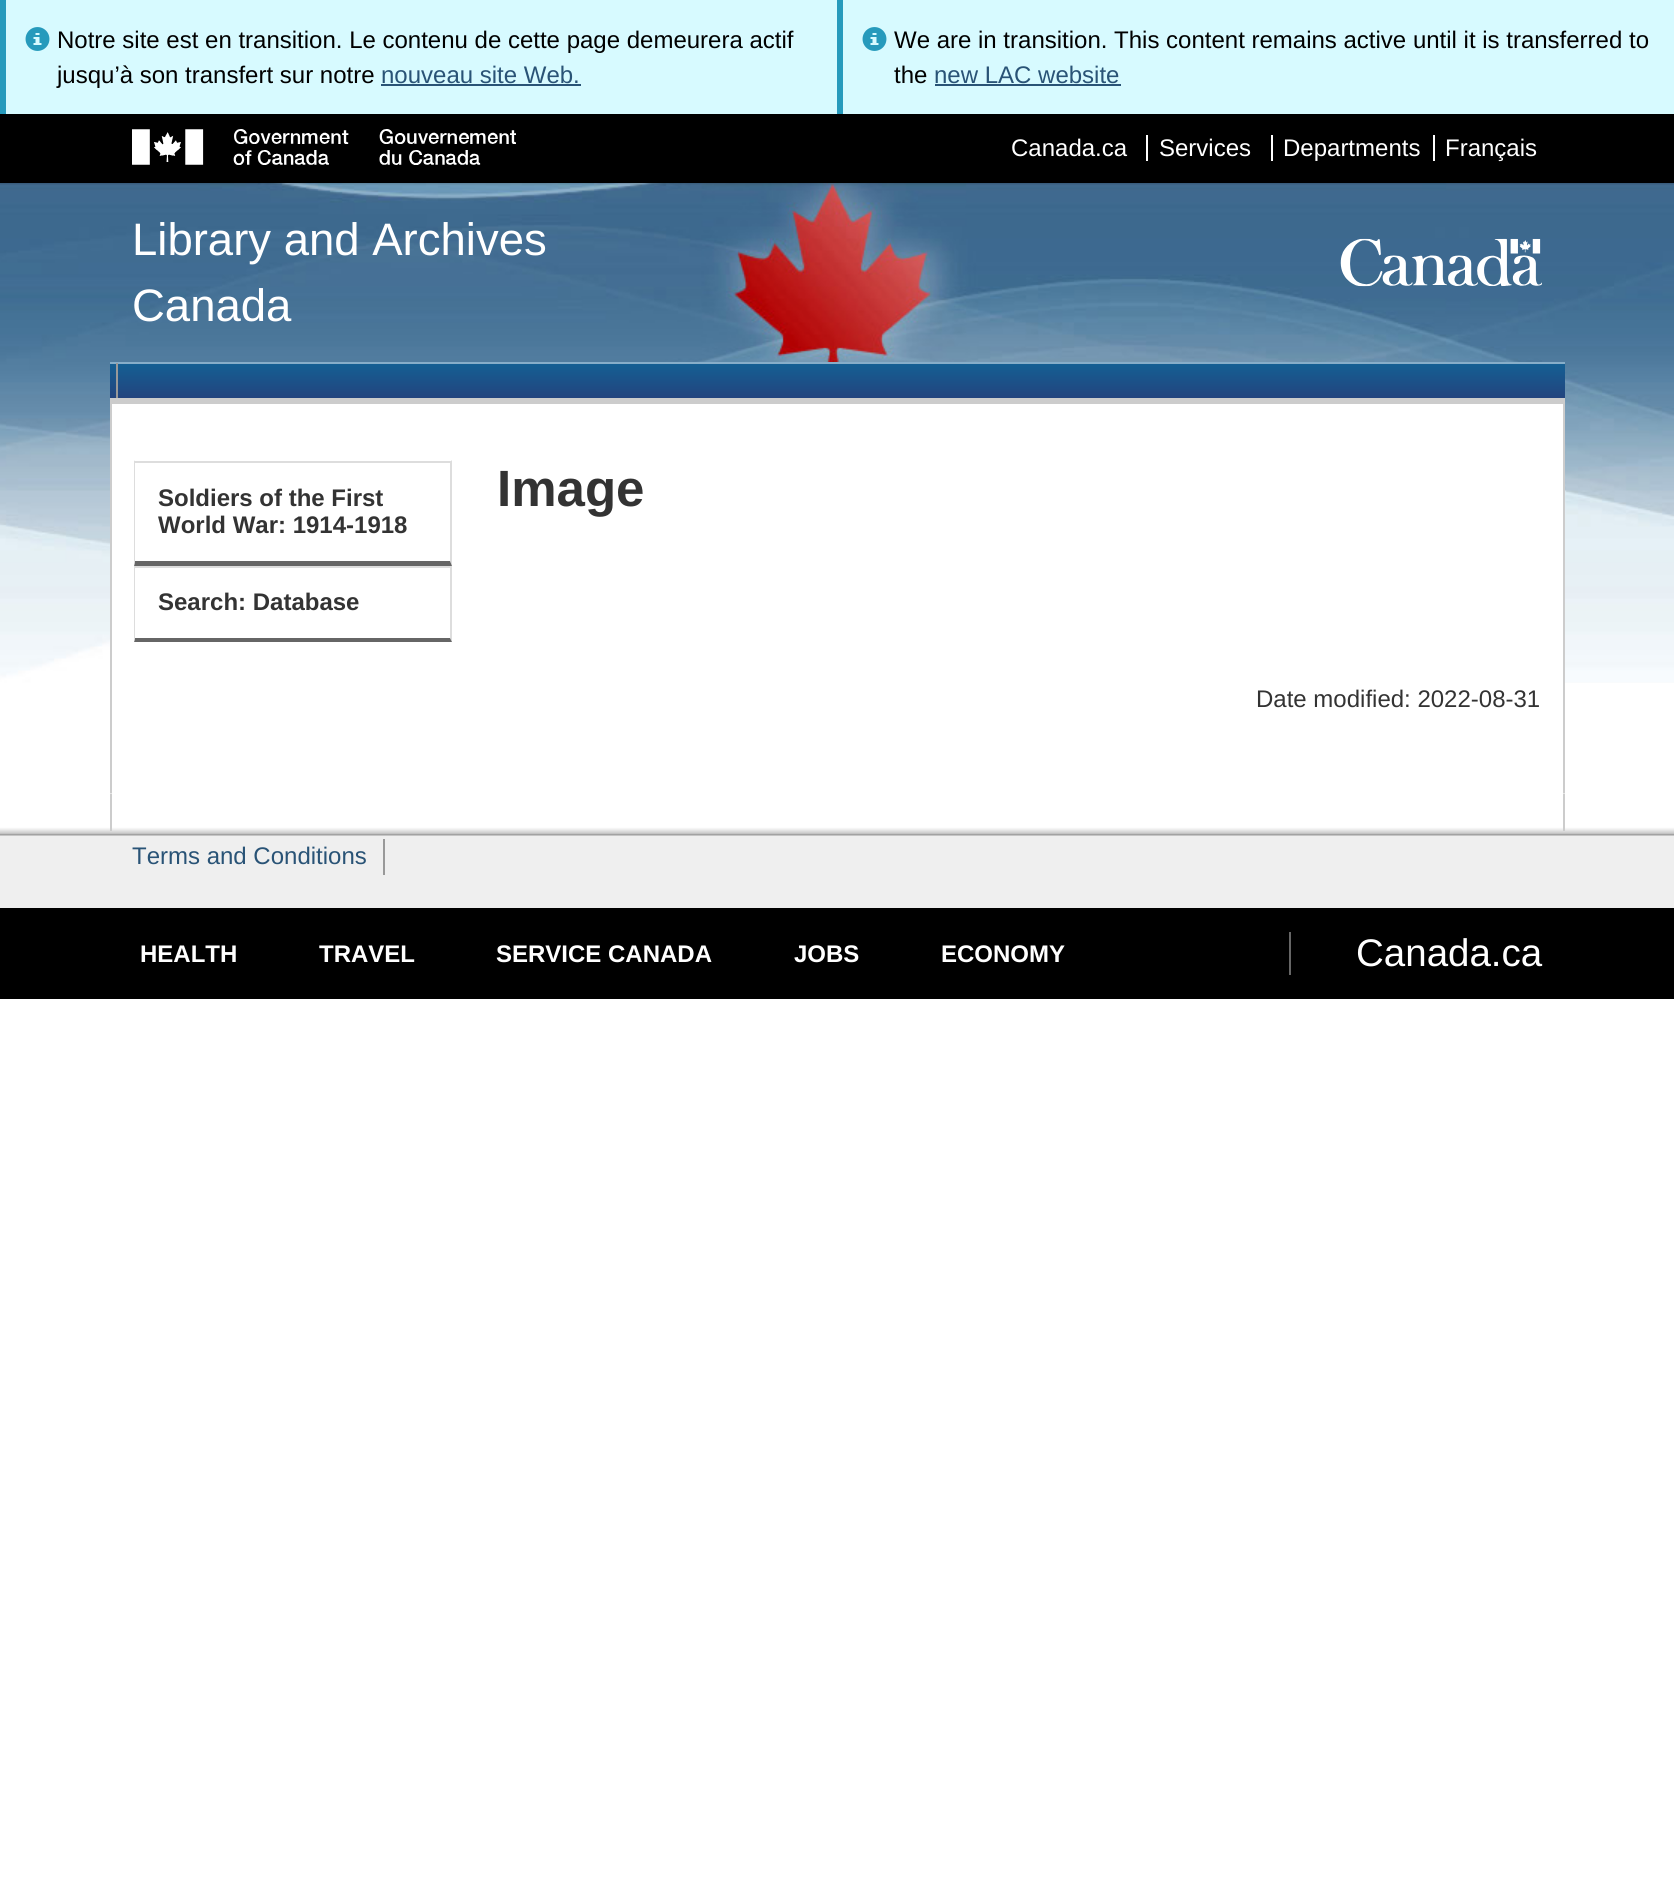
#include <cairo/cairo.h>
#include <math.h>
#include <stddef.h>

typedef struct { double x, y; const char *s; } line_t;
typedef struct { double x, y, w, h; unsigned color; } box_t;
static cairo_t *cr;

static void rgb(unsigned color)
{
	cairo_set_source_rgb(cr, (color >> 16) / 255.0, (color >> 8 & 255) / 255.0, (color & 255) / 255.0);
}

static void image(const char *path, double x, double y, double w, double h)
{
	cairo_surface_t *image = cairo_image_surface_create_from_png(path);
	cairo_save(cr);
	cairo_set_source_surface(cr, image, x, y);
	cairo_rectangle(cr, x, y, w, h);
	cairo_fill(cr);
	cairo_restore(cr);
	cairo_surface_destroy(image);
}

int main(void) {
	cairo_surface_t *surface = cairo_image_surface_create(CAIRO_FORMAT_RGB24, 1674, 1901);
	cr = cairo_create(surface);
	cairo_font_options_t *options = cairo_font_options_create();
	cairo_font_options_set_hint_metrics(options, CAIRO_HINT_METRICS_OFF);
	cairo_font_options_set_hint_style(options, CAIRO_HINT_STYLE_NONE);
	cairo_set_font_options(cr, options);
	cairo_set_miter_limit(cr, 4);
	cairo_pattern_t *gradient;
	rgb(0xffffff);
	cairo_paint(cr);
	rgb(0xd7faff);
	cairo_rectangle(cr, 6, 0, 831, 114);
	cairo_fill(cr);
	rgb(0x269abc);
	cairo_rectangle(cr, 0, 0, 6, 114);
	cairo_fill(cr);
	image("img/1.png", 25, 27, 25, 24);
	{
		static const box_t items[] = {
			{381, 84, 200, 2, 0x295376},
			{843, 0, 831, 114, 0xd7faff},
			{837, 0, 6, 114, 0x269abc},
		};
		for (size_t i = 0; i < sizeof items / sizeof *items; i++) {
			rgb(items[i].color);
			cairo_rectangle(cr, items[i].x, items[i].y, items[i].w, items[i].h);
			cairo_fill(cr);
		}
	}
	image("img/1.png", 862, 27, 25, 24);
	rgb(0x295376);
	cairo_rectangle(cr, 935, 84, 186, 2);
	cairo_fill(cr);
	image("img/2.png", 0, 183, 1674, 500);
	rgb(0x000000);
	cairo_rectangle(cr, 0, 114, 1674, 69);
	cairo_fill(cr);
	image("img/3.png", 132, 129, 384, 36);
	{
		static const box_t items[] = {
			{1146, 135, 2, 26, 0xffffff},
			{1271, 135, 2, 26, 0xffffff},
			{1433, 135, 2, 26, 0xffffff},
		};
		for (size_t i = 0; i < sizeof items / sizeof *items; i++) {
			rgb(items[i].color);
			cairo_rectangle(cr, items[i].x, items[i].y, items[i].w, items[i].h);
			cairo_fill(cr);
		}
	}
	image("img/4.png", 1340, 238, 202, 49);
	gradient = cairo_pattern_create_linear(837, 363, 837, 398);
	cairo_pattern_add_color_stop_rgba(gradient, 0, 0.078, 0.376, 0.58, 1);
	cairo_pattern_add_color_stop_rgba(gradient, 1, 0.137, 0.267, 0.494, 1);
	cairo_set_source(cr, gradient);
	cairo_pattern_destroy(gradient);
	cairo_rectangle(cr, 110, 364, 1455, 34);
	cairo_fill(cr);
	{
		static const box_t items[] = {
			{110, 362, 1455, 2, 0x87aec9},
			{110, 398, 1455, 6, 0xcccccc},
			{116, 363, 2, 35, 0x999999},
			{112, 404, 1451, 279, 0xffffff},
			{1563, 404, 2, 390, 0xcccccc},
			{110, 404, 2, 390, 0xcccccc},
			{134, 461, 318, 2, 0xdddddd},
		};
		for (size_t i = 0; i < sizeof items / sizeof *items; i++) {
			rgb(items[i].color);
			cairo_rectangle(cr, items[i].x, items[i].y, items[i].w, items[i].h);
			cairo_fill(cr);
		}
	}
	cairo_new_path(cr);
	cairo_move_to(cr, 452, 460);
	cairo_line_to(cr, 452, 566);
	cairo_line_to(cr, 450, 561);
	cairo_line_to(cr, 450, 462);
	cairo_close_path(cr);
	cairo_fill(cr);
	rgb(0x666666);
	cairo_new_path(cr);
	cairo_move_to(cr, 452, 566);
	cairo_line_to(cr, 134, 566);
	cairo_line_to(cr, 135, 561);
	cairo_line_to(cr, 450, 561);
	cairo_close_path(cr);
	cairo_fill(cr);
	rgb(0xdddddd);
	cairo_new_path(cr);
	cairo_move_to(cr, 134, 566);
	cairo_line_to(cr, 134, 460);
	cairo_line_to(cr, 135, 462);
	cairo_line_to(cr, 135, 561);
	cairo_close_path(cr);
	cairo_fill(cr);
	cairo_rectangle(cr, 134, 566, 318, 2);
	cairo_fill(cr);
	cairo_new_path(cr);
	cairo_move_to(cr, 452, 566);
	cairo_line_to(cr, 452, 642);
	cairo_line_to(cr, 450, 638);
	cairo_line_to(cr, 450, 567);
	cairo_close_path(cr);
	cairo_fill(cr);
	rgb(0x666666);
	cairo_new_path(cr);
	cairo_move_to(cr, 452, 642);
	cairo_line_to(cr, 134, 642);
	cairo_line_to(cr, 135, 638);
	cairo_line_to(cr, 450, 638);
	cairo_close_path(cr);
	cairo_fill(cr);
	rgb(0xdddddd);
	cairo_new_path(cr);
	cairo_move_to(cr, 134, 642);
	cairo_line_to(cr, 134, 566);
	cairo_line_to(cr, 135, 567);
	cairo_line_to(cr, 135, 638);
	cairo_close_path(cr);
	cairo_fill(cr);
	rgb(0xefefef);
	cairo_rectangle(cr, 0, 836, 1674, 72);
	cairo_fill(cr);
	image("img/5.png", 0, 793, 1674, 43);
	{
		static const box_t items[] = {
			{1563, 794, 2, 37, 0xcccccc},
			{110, 794, 2, 37, 0xcccccc},
			{383, 839, 2, 36, 0x999999},
			{0, 908, 1674, 91, 0x000000},
			{1289, 932, 2, 43, 0x666666},
		};
		for (size_t i = 0; i < sizeof items / sizeof *items; i++) {
			rgb(items[i].color);
			cairo_rectangle(cr, items[i].x, items[i].y, items[i].w, items[i].h);
			cairo_fill(cr);
		}
	}
	cairo_select_font_face(cr, "Liberation Sans", CAIRO_FONT_SLANT_NORMAL, CAIRO_FONT_WEIGHT_NORMAL);
	cairo_set_font_size(cr, 24);
	rgb(0x000000);
	cairo_move_to(cr, 57, 48);
	cairo_show_text(cr, "Notre site est en transition. Le contenu de cette page demeurera actif");
	cairo_move_to(cr, 57, 83);
	cairo_show_text(cr, "jusqu’à son transfert sur notre");
	rgb(0x295376);
	cairo_move_to(cr, 381, 83);
	cairo_show_text(cr, "nouveau site Web.");
	rgb(0x000000);
	cairo_move_to(cr, 894, 48);
	cairo_show_text(cr, "We are in transition. This content remains active until it is transferred to");
	cairo_move_to(cr, 894, 83);
	cairo_show_text(cr, "the");
	rgb(0x295376);
	cairo_move_to(cr, 934, 83);
	cairo_show_text(cr, "new LAC website");
	rgb(0xffffff);
	{
		static const line_t items[] = {
			{1011, 156, "Canada.ca"},
			{1159, 156, "Services"},
			{1283, 156, "Departments"},
			{1445, 156, "Français"},
		};
		for (size_t i = 0; i < sizeof items / sizeof *items; i++) {
			cairo_move_to(cr, items[i].x, items[i].y);
			cairo_show_text(cr, items[i].s);
		}
	}
	cairo_set_font_size(cr, 45.5);
	cairo_move_to(cr, 132, 255);
	cairo_show_text(cr, "Library and Archives");
	cairo_move_to(cr, 132, 321);
	cairo_show_text(cr, "Canada");
	cairo_select_font_face(cr, "Liberation Sans", CAIRO_FONT_SLANT_NORMAL, CAIRO_FONT_WEIGHT_BOLD);
	cairo_set_font_size(cr, 24);
	rgb(0x333333);
	{
		static const line_t items[] = {
			{158, 506, "Soldiers of the First"},
			{158, 533, "World War: 1914-1918"},
			{158, 610, "Search: Database"},
		};
		for (size_t i = 0; i < sizeof items / sizeof *items; i++) {
			cairo_move_to(cr, items[i].x, items[i].y);
			cairo_show_text(cr, items[i].s);
		}
	}
	cairo_set_font_size(cr, 51);
	cairo_move_to(cr, 497, 506);
	cairo_show_text(cr, "Image");
	cairo_select_font_face(cr, "Liberation Sans", CAIRO_FONT_SLANT_NORMAL, CAIRO_FONT_WEIGHT_NORMAL);
	cairo_set_font_size(cr, 24);
	cairo_move_to(cr, 1256, 707);
	cairo_show_text(cr, "Date modified: 2022-08-31");
	rgb(0x295376);
	cairo_move_to(cr, 132, 864);
	cairo_show_text(cr, "Terms and Conditions");
	cairo_select_font_face(cr, "Liberation Sans", CAIRO_FONT_SLANT_NORMAL, CAIRO_FONT_WEIGHT_BOLD);
	rgb(0xffffff);
	{
		static const line_t items[] = {
			{140, 962, "HEALTH"},
			{319, 962, "TRAVEL"},
			{496, 962, "SERVICE CANADA"},
			{794, 962, "JOBS"},
			{941, 962, "ECONOMY"},
		};
		for (size_t i = 0; i < sizeof items / sizeof *items; i++) {
			cairo_move_to(cr, items[i].x, items[i].y);
			cairo_show_text(cr, items[i].s);
		}
	}
	cairo_select_font_face(cr, "Liberation Sans", CAIRO_FONT_SLANT_NORMAL, CAIRO_FONT_WEIGHT_NORMAL);
	cairo_set_font_size(cr, 38.5);
	cairo_move_to(cr, 1356, 966);
	cairo_show_text(cr, "Canada.ca");
	cairo_surface_write_to_png(surface, "page.png");
	cairo_font_options_destroy(options);
	cairo_destroy(cr);
	cairo_surface_destroy(surface);
	return 0;
}
